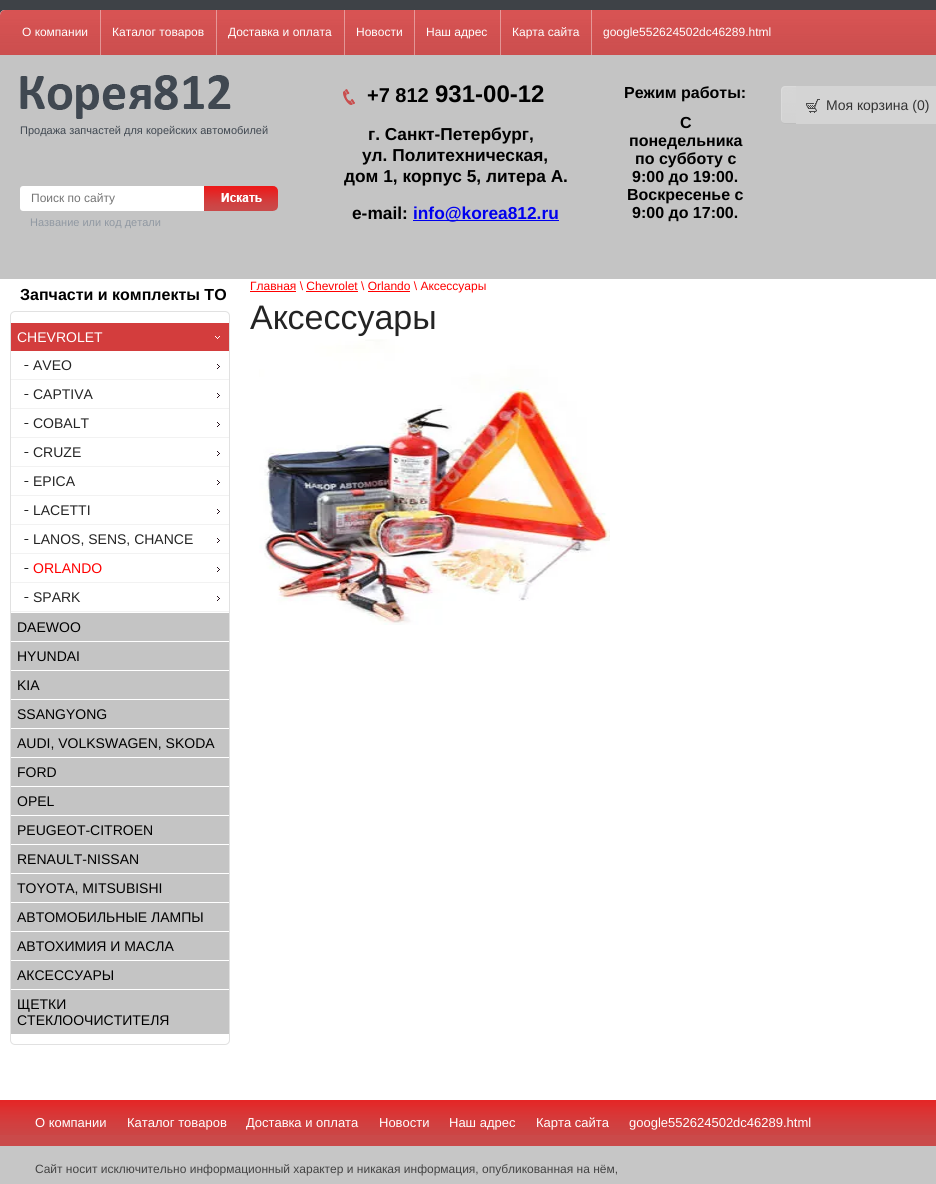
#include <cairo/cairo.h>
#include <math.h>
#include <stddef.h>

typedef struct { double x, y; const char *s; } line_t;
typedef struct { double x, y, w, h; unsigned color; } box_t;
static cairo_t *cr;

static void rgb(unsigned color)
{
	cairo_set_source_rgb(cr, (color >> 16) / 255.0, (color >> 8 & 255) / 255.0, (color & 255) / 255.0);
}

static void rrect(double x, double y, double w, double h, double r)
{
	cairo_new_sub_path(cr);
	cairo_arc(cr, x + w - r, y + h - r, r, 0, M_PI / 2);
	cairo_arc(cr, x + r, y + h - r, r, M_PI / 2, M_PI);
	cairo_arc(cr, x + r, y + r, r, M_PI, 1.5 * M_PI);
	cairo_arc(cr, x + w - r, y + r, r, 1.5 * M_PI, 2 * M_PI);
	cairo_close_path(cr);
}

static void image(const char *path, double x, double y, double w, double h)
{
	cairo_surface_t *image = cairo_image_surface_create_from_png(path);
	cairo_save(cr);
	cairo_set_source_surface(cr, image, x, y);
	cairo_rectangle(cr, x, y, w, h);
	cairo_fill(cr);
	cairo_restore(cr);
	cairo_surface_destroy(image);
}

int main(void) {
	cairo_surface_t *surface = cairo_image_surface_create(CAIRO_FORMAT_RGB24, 936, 1184);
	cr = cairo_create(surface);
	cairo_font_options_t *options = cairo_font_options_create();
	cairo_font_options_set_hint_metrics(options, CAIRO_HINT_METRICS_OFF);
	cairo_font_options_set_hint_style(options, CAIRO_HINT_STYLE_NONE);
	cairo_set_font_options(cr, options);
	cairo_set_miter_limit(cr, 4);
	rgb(0x3e4247);
	cairo_paint(cr);
	rgb(0xffffff);
	cairo_new_path(cr);
	cairo_move_to(cr, 5, 10);
	cairo_line_to(cr, 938, 10);
	cairo_curve_to(cr, 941, 10, 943, 12, 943, 15);
	cairo_line_to(cr, 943, 1184);
	cairo_curve_to(cr, 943, 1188, 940, 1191, 936, 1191);
	cairo_line_to(cr, 7, 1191);
	cairo_curve_to(cr, 3, 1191, 0, 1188, 0, 1184);
	cairo_line_to(cr, 0, 15);
	cairo_curve_to(cr, 0, 12, 2, 10, 5, 10);
	cairo_close_path(cr);
	cairo_fill(cr);
	image("img/1.png", 0, 10, 936, 45);
	cairo_set_source_rgba(cr, 1, 1, 1, 0.4);
	cairo_rectangle(cr, 100, 10, 1, 45);
	cairo_fill(cr);
	cairo_rectangle(cr, 216, 10, 1, 45);
	cairo_fill(cr);
	cairo_rectangle(cr, 344, 10, 1, 45);
	cairo_fill(cr);
	cairo_rectangle(cr, 414, 10, 1, 45);
	cairo_fill(cr);
	cairo_rectangle(cr, 500, 10, 1, 45);
	cairo_fill(cr);
	cairo_rectangle(cr, 591, 10, 1, 45);
	cairo_fill(cr);
	rgb(0xc4c4c4);
	cairo_rectangle(cr, 0, 55, 936, 224);
	cairo_fill(cr);
	image("img/2.png", 343, 89, 12, 16);
	rgb(0x0000ee);
	cairo_rectangle(cr, 413, 220, 146, 1);
	cairo_fill(cr);
	image("img/3.png", 781, 86, 15, 38);
	rgb(0xd4d4d4);
	cairo_rectangle(cr, 796, 86, 140, 38);
	cairo_fill(cr);
	image("img/4.png", 806, 99, 14, 14);
	image("img/5.png", 20, 75, 211, 44);
	rgb(0xffffff);
	rrect(20, 186, 255, 25, 3);
	cairo_fill(cr);
	image("img/6.png", 204, 186, 74, 25);
	rrect(10.5, 311.5, 219, 733, 4.5);
	rgb(0xe1e1e1);
	cairo_set_line_width(cr, 1);
	cairo_stroke(cr);
	rgb(0xd33d3d);
	cairo_rectangle(cr, 11, 323, 218, 28);
	cairo_fill(cr);
	image("img/7.png", 215, 336, 5, 3);
	rgb(0xf2f2f2);
	cairo_rectangle(cr, 11, 379, 218, 1);
	cairo_fill(cr);
	image("img/8.png", 217, 364, 3, 5);
	image("img/9.png", 24, 365, 5, 1);
	cairo_rectangle(cr, 11, 408, 218, 1);
	cairo_fill(cr);
	image("img/8.png", 217, 393, 3, 5);
	image("img/9.png", 24, 394, 5, 1);
	cairo_rectangle(cr, 11, 437, 218, 1);
	cairo_fill(cr);
	image("img/8.png", 217, 422, 3, 5);
	image("img/9.png", 24, 423, 5, 1);
	cairo_rectangle(cr, 11, 466, 218, 1);
	cairo_fill(cr);
	image("img/8.png", 217, 451, 3, 5);
	image("img/9.png", 24, 452, 5, 1);
	cairo_rectangle(cr, 11, 495, 218, 1);
	cairo_fill(cr);
	image("img/8.png", 217, 480, 3, 5);
	image("img/9.png", 24, 481, 5, 1);
	cairo_rectangle(cr, 11, 524, 218, 1);
	cairo_fill(cr);
	image("img/8.png", 217, 509, 3, 5);
	image("img/9.png", 24, 510, 5, 1);
	cairo_rectangle(cr, 11, 553, 218, 1);
	cairo_fill(cr);
	image("img/8.png", 217, 538, 3, 5);
	image("img/9.png", 24, 539, 5, 1);
	cairo_rectangle(cr, 11, 582, 218, 1);
	cairo_fill(cr);
	image("img/8.png", 217, 567, 3, 5);
	image("img/9.png", 24, 568, 5, 1);
	cairo_rectangle(cr, 11, 611, 218, 1);
	cairo_fill(cr);
	image("img/8.png", 217, 596, 3, 5);
	image("img/9.png", 24, 597, 5, 1);
	{
		static const box_t items[] = {
			{11, 613, 218, 28, 0xc4c4c4},
			{11, 642, 218, 28, 0xc4c4c4},
			{11, 671, 218, 28, 0xc4c4c4},
			{11, 700, 218, 28, 0xc4c4c4},
			{11, 729, 218, 28, 0xc4c4c4},
			{11, 758, 218, 28, 0xc4c4c4},
			{11, 787, 218, 28, 0xc4c4c4},
			{11, 816, 218, 28, 0xc4c4c4},
			{11, 845, 218, 28, 0xc4c4c4},
			{11, 874, 218, 28, 0xc4c4c4},
			{11, 903, 218, 28, 0xc4c4c4},
			{11, 932, 218, 28, 0xc4c4c4},
			{11, 961, 218, 28, 0xc4c4c4},
			{11, 990, 218, 44, 0xc4c4c4},
			{250, 291, 46, 1, 0xff0000},
			{306, 291, 52, 1, 0xff0000},
			{368, 291, 42, 1, 0xff0000},
		};
		for (size_t i = 0; i < sizeof items / sizeof *items; i++) {
			rgb(items[i].color);
			cairo_rectangle(cr, items[i].x, items[i].y, items[i].w, items[i].h);
			cairo_fill(cr);
		}
	}
	image("img/10.png", 259, 339, 351, 286);
	rgb(0xca4a4a);
	cairo_rectangle(cr, 0, 1135, 936, 11);
	cairo_fill(cr);
	image("img/11.png", 0, 1100, 936, 35);
	rgb(0xc6c6c6);
	cairo_rectangle(cr, 0, 1146, 936, 38);
	cairo_fill(cr);
	cairo_select_font_face(cr, "Liberation Sans", CAIRO_FONT_SLANT_NORMAL, CAIRO_FONT_WEIGHT_NORMAL);
	cairo_set_font_size(cr, 12);
	rgb(0xffffff);
	{
		static const line_t items[] = {
			{22, 36, "О компании"},
			{112, 36, "Каталог товаров"},
			{228, 36, "Доставка и оплата"},
			{356, 36, "Новости"},
			{426, 36, "Наш адрес"},
			{512, 36, "Карта сайта"},
			{603, 36, "google552624502dc46289.html"},
		};
		for (size_t i = 0; i < sizeof items / sizeof *items; i++) {
			cairo_move_to(cr, items[i].x, items[i].y);
			cairo_show_text(cr, items[i].s);
		}
	}
	cairo_select_font_face(cr, "Liberation Sans", CAIRO_FONT_SLANT_NORMAL, CAIRO_FONT_WEIGHT_BOLD);
	cairo_set_font_size(cr, 20);
	rgb(0x000000);
	cairo_move_to(cr, 367, 102);
	cairo_show_text(cr, "+7 812");
	cairo_set_font_size(cr, 24);
	cairo_move_to(cr, 435, 102);
	cairo_show_text(cr, "931-00-12");
	cairo_set_font_size(cr, 17.3);
	{
		static const line_t items[] = {
			{368, 140, "г. Санкт-Петербург,"},
			{362, 161, "ул. Политехническая,"},
			{344, 182, "дом 1, корпус 5, литера А."},
			{352, 219, "e-mail:"},
		};
		for (size_t i = 0; i < sizeof items / sizeof *items; i++) {
			cairo_move_to(cr, items[i].x, items[i].y);
			cairo_show_text(cr, items[i].s);
		}
	}
	rgb(0x0000ee);
	cairo_move_to(cr, 413, 219);
	cairo_show_text(cr, "info@korea812.ru");
	cairo_set_font_size(cr, 16);
	rgb(0x000000);
	{
		static const line_t items[] = {
			{624, 98, "Режим работы:"},
			{680, 128, "С"},
			{629, 146, "понедельника"},
			{635, 164, "по субботу с"},
			{632, 182, "9:00 до 19:00."},
			{627, 200, "Воскресенье с"},
			{632, 218, "9:00 до 17:00."},
		};
		for (size_t i = 0; i < sizeof items / sizeof *items; i++) {
			cairo_move_to(cr, items[i].x, items[i].y);
			cairo_show_text(cr, items[i].s);
		}
	}
	cairo_select_font_face(cr, "Liberation Sans", CAIRO_FONT_SLANT_NORMAL, CAIRO_FONT_WEIGHT_NORMAL);
	cairo_set_font_size(cr, 14);
	rgb(0x333333);
	cairo_move_to(cr, 826, 110);
	cairo_show_text(cr, "Моя корзина (0)");
	cairo_set_font_size(cr, 11);
	rgb(0x404851);
	cairo_move_to(cr, 20, 134);
	cairo_show_text(cr, "Продажа запчастей для корейских автомобилей");
	cairo_set_font_size(cr, 12);
	rgb(0x757575);
	cairo_move_to(cr, 31, 202);
	cairo_show_text(cr, "Поиск по сайту");
	cairo_set_font_size(cr, 11);
	rgb(0x9098a2);
	cairo_move_to(cr, 30, 226);
	cairo_show_text(cr, "Название или код детали");
	cairo_select_font_face(cr, "Liberation Sans", CAIRO_FONT_SLANT_NORMAL, CAIRO_FONT_WEIGHT_BOLD);
	cairo_set_font_size(cr, 16);
	rgb(0x000000);
	cairo_move_to(cr, 20, 300);
	cairo_show_text(cr, "Запчасти и комплекты ТО");
	cairo_select_font_face(cr, "Liberation Sans", CAIRO_FONT_SLANT_NORMAL, CAIRO_FONT_WEIGHT_NORMAL);
	cairo_set_font_size(cr, 14);
	rgb(0xffffff);
	cairo_move_to(cr, 17, 342);
	cairo_show_text(cr, "CHEVROLET");
	rgb(0x242424);
	{
		static const line_t items[] = {
			{33, 370, "AVEO"},
			{33, 399, "CAPTIVA"},
			{33, 428, "COBALT"},
			{33, 457, "CRUZE"},
			{33, 486, "EPICA"},
			{33, 515, "LACETTI"},
			{33, 544, "LANOS, SENS, CHANCE"},
		};
		for (size_t i = 0; i < sizeof items / sizeof *items; i++) {
			cairo_move_to(cr, items[i].x, items[i].y);
			cairo_show_text(cr, items[i].s);
		}
	}
	rgb(0xff0000);
	cairo_move_to(cr, 33, 573);
	cairo_show_text(cr, "ORLANDO");
	rgb(0x242424);
	cairo_move_to(cr, 33, 602);
	cairo_show_text(cr, "SPARK");
	rgb(0x000000);
	{
		static const line_t items[] = {
			{17, 632, "DAEWOO"},
			{17, 661, "HYUNDAI"},
			{17, 690, "KIA"},
			{17, 719, "SSANGYONG"},
			{17, 748, "AUDI, VOLKSWAGEN, SKODA"},
			{17, 777, "FORD"},
			{17, 806, "OPEL"},
			{17, 835, "PEUGEOT-CITROEN"},
			{17, 864, "RENAULT-NISSAN"},
			{17, 893, "TOYOTA, MITSUBISHI"},
			{17, 922, "АВТОМОБИЛЬНЫЕ ЛАМПЫ"},
			{17, 951, "АВТОХИМИЯ И МАСЛА"},
			{17, 980, "АКСЕССУАРЫ"},
			{17, 1009, "ЩЕТКИ"},
			{17, 1025, "СТЕКЛООЧИСТИТЕЛЯ"},
		};
		for (size_t i = 0; i < sizeof items / sizeof *items; i++) {
			cairo_move_to(cr, items[i].x, items[i].y);
			cairo_show_text(cr, items[i].s);
		}
	}
	cairo_set_font_size(cr, 12);
	rgb(0xff0000);
	cairo_move_to(cr, 250, 290);
	cairo_show_text(cr, "Главная \\ Chevrolet \\ Orlando \\ Аксессуары");
	cairo_set_font_size(cr, 34);
	rgb(0x242424);
	cairo_move_to(cr, 250, 329);
	cairo_show_text(cr, "Аксессуары");
	cairo_set_font_size(cr, 13);
	rgb(0xffffff);
	{
		static const line_t items[] = {
			{35, 1127, "О компании"},
			{127, 1127, "Каталог товаров"},
			{246, 1127, "Доставка и оплата"},
			{379, 1127, "Новости"},
			{449, 1127, "Наш адрес"},
			{536, 1127, "Карта сайта"},
			{629, 1127, "google552624502dc46289.html"},
		};
		for (size_t i = 0; i < sizeof items / sizeof *items; i++) {
			cairo_move_to(cr, items[i].x, items[i].y);
			cairo_show_text(cr, items[i].s);
		}
	}
	cairo_set_font_size(cr, 12);
	rgb(0x434343);
	cairo_move_to(cr, 35, 1173);
	cairo_show_text(cr, "Сайт носит исключительно информационный характер и никакая информация, опубликованная на нём,");
	cairo_surface_write_to_png(surface, "page.png");
	cairo_font_options_destroy(options);
	cairo_destroy(cr);
	cairo_surface_destroy(surface);
	return 0;
}
